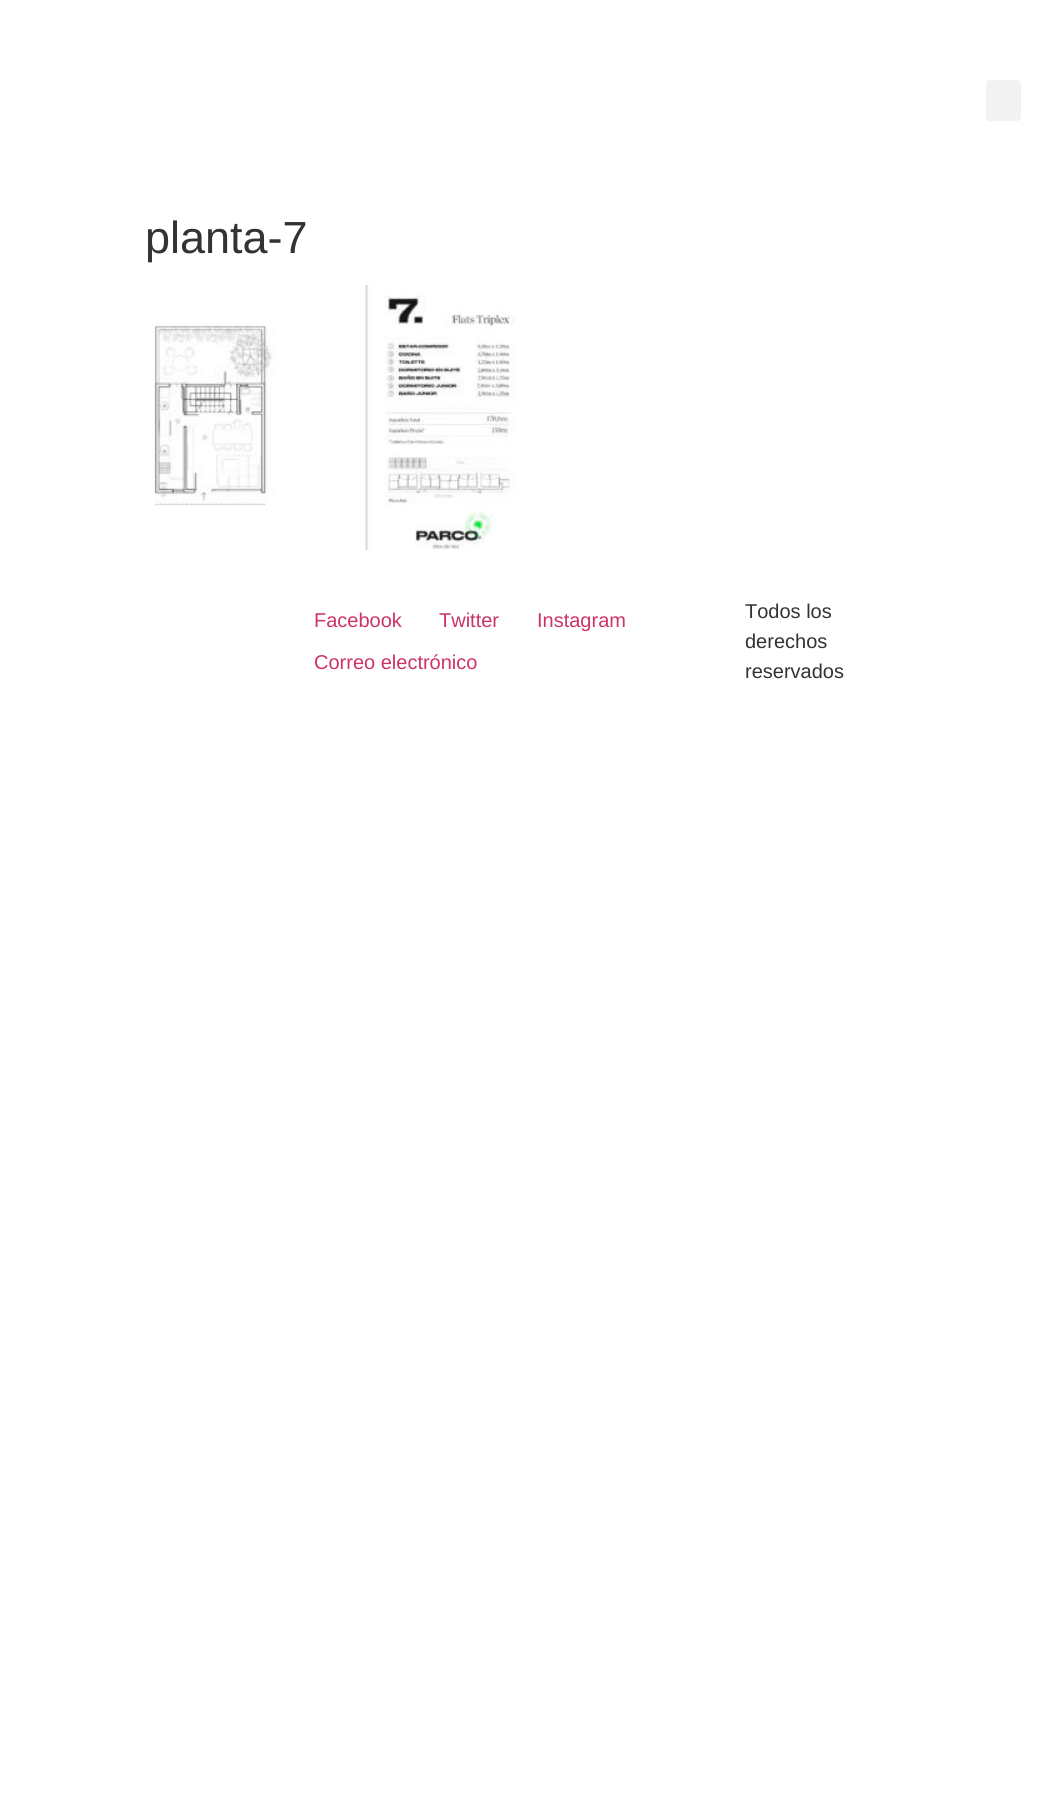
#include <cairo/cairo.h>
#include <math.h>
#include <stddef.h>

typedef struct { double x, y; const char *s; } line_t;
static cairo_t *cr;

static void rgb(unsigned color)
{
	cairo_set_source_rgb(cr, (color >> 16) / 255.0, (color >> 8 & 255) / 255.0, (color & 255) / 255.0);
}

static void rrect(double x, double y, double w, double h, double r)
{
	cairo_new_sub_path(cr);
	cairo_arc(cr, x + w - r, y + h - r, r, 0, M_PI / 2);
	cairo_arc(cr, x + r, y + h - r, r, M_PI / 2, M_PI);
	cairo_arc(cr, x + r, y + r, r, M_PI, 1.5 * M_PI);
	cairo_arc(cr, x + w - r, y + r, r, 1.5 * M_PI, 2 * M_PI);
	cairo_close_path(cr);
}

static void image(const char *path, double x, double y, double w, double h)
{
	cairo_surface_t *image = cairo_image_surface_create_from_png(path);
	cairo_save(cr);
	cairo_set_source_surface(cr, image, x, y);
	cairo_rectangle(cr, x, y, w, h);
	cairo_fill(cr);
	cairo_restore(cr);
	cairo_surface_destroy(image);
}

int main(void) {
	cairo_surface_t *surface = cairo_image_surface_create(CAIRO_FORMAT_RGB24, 1039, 1807);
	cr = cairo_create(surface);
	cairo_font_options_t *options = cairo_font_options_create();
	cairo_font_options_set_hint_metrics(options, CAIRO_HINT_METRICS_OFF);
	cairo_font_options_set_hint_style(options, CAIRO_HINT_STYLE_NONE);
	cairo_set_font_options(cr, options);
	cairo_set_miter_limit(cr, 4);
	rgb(0xffffff);
	cairo_paint(cr);
	rgb(0xf2f2f2);
	rrect(986, 80, 35, 41, 4);
	cairo_fill(cr);
	image("img/1.png", 154, 285, 361, 265);
	cairo_select_font_face(cr, "Liberation Sans", CAIRO_FONT_SLANT_NORMAL, CAIRO_FONT_WEIGHT_NORMAL);
	cairo_set_font_size(cr, 45);
	rgb(0x333333);
	cairo_move_to(cr, 145, 253);
	cairo_show_text(cr, "planta-7");
	cairo_set_font_size(cr, 20);
	rgb(0xcc3366);
	{
		static const line_t items[] = {
			{314, 627, "Facebook"},
			{439, 627, "Twitter"},
			{537, 627, "Instagram"},
			{314, 669, "Correo electrónico"},
		};
		for (size_t i = 0; i < sizeof items / sizeof *items; i++) {
			cairo_move_to(cr, items[i].x, items[i].y);
			cairo_show_text(cr, items[i].s);
		}
	}
	rgb(0x333333);
	{
		static const line_t items[] = {
			{745, 618, "Todos los"},
			{745, 648, "derechos"},
			{745, 678, "reservados"},
		};
		for (size_t i = 0; i < sizeof items / sizeof *items; i++) {
			cairo_move_to(cr, items[i].x, items[i].y);
			cairo_show_text(cr, items[i].s);
		}
	}
	cairo_surface_write_to_png(surface, "page.png");
	cairo_font_options_destroy(options);
	cairo_destroy(cr);
	cairo_surface_destroy(surface);
	return 0;
}
